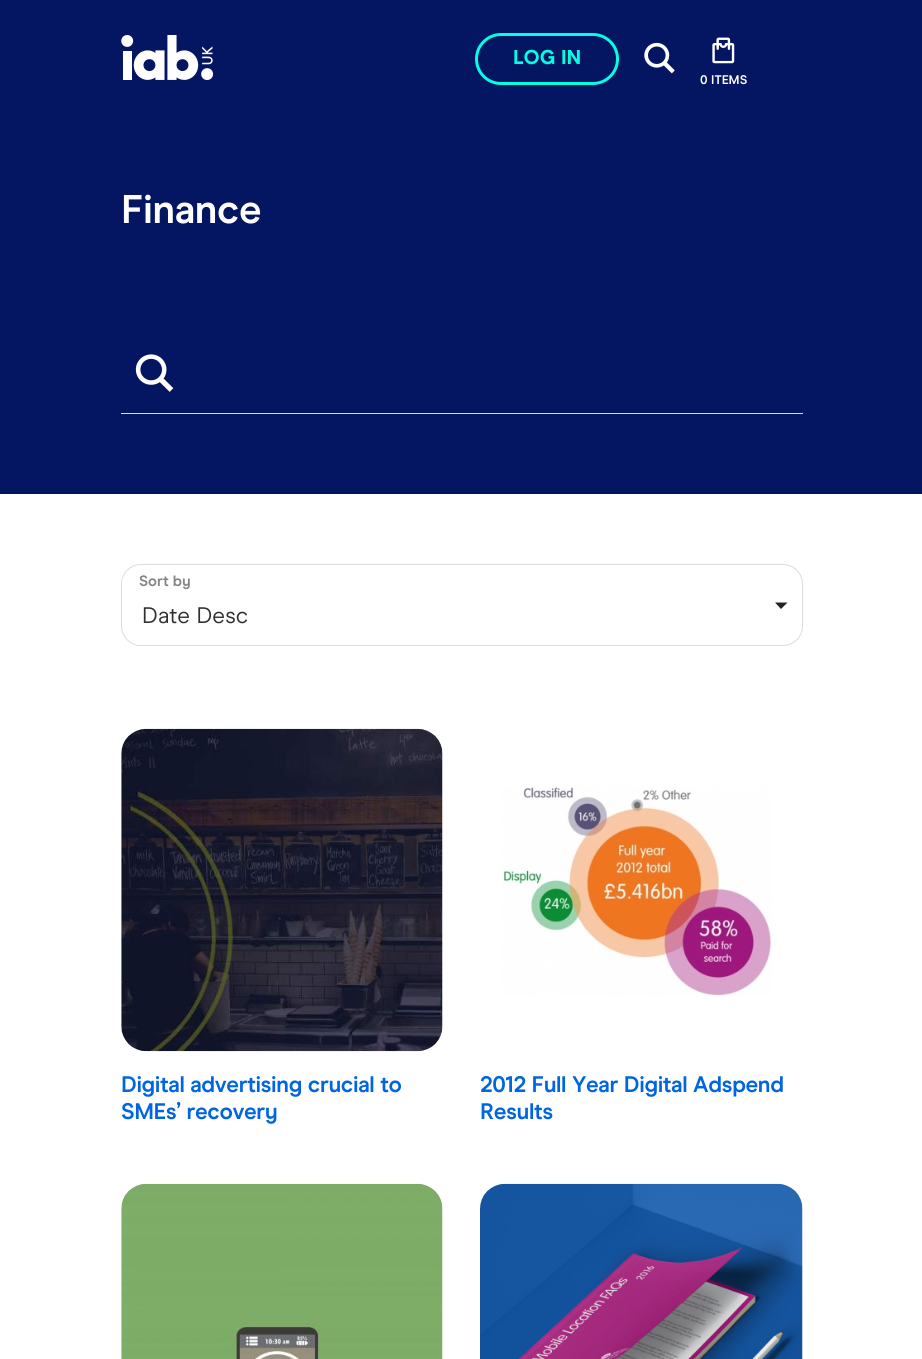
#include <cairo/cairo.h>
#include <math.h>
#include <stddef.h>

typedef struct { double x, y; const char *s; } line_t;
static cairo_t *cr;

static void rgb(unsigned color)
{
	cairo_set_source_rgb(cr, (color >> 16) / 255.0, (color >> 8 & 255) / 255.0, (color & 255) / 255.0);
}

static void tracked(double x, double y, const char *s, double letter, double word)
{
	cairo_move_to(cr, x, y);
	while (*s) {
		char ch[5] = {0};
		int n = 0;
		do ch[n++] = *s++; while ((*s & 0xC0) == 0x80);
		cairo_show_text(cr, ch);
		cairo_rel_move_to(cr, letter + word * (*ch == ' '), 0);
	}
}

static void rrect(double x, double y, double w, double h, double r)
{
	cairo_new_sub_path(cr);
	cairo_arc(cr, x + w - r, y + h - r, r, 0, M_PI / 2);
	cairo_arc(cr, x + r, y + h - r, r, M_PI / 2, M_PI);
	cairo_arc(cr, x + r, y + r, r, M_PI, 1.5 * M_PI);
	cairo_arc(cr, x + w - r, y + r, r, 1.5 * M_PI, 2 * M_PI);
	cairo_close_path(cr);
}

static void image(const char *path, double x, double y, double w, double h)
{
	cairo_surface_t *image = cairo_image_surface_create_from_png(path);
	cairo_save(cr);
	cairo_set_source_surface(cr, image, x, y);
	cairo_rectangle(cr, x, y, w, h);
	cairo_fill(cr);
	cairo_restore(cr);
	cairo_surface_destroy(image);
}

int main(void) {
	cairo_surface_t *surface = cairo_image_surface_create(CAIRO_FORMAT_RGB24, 922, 1359);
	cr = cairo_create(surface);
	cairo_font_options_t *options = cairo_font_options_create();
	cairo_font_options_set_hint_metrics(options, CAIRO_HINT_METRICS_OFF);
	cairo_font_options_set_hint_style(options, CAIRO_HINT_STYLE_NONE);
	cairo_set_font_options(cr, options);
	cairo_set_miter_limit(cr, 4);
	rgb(0xffffff);
	cairo_paint(cr);
	rgb(0x041561);
	cairo_rectangle(cr, 0, 0, 922, 494);
	cairo_fill(cr);
	image("img/1.png", 121, 35, 93, 46);
	rrect(476.5, 34.5, 141, 49, 24.5);
	rgb(0x00ffe3);
	cairo_set_line_width(cr, 3);
	cairo_stroke(cr);
	image("img/2.png", 644, 42, 31, 32);
	image("img/3.png", 712, 37, 23, 27);
	image("img/4.png", 135, 354, 39, 38);
	rgb(0xdcdcdc);
	cairo_rectangle(cr, 121, 413, 682, 1);
	cairo_fill(cr);
	rrect(121.5, 564.5, 681, 81, 19.5);
	cairo_set_line_width(cr, 1);
	cairo_stroke(cr);
	rgb(0x212121);
	cairo_new_path(cr);
	cairo_move_to(cr, 775, 602.5);
	cairo_line_to(cr, 781, 609);
	cairo_line_to(cr, 787.5, 602.5);
	cairo_close_path(cr);
	cairo_fill(cr);
	image("img/5.png", 121, 728, 322, 324);
	image("img/6.png", 502, 787, 270, 209);
	image("img/7.png", 121, 1183, 322, 176);
	image("img/8.png", 480, 1183, 323, 176);
	cairo_select_font_face(cr, "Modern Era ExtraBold", CAIRO_FONT_SLANT_NORMAL, CAIRO_FONT_WEIGHT_NORMAL);
	cairo_set_font_size(cr, 20);
	rgb(0x00ffe3);
	cairo_move_to(cr, 513, 64);
	cairo_show_text(cr, "LOG IN");
	cairo_select_font_face(cr, "Modern Era", CAIRO_FONT_SLANT_NORMAL, CAIRO_FONT_WEIGHT_BOLD);
	cairo_set_font_size(cr, 12.5);
	rgb(0xffffff);
	cairo_move_to(cr, 700, 84);
	cairo_show_text(cr, "0 ITEMS");
	cairo_set_font_size(cr, 40);
	tracked(121, 223, "Finance", -0.4, 0);
	cairo_set_font_size(cr, 15);
	rgb(0x838383);
	cairo_move_to(cr, 139, 586);
	cairo_show_text(cr, "Sort by");
	cairo_select_font_face(cr, "Modern Era", CAIRO_FONT_SLANT_NORMAL, CAIRO_FONT_WEIGHT_NORMAL);
	cairo_set_font_size(cr, 22.5);
	rgb(0x303030);
	cairo_move_to(cr, 142, 623);
	cairo_show_text(cr, "Date Desc");
	cairo_select_font_face(cr, "Modern Era", CAIRO_FONT_SLANT_NORMAL, CAIRO_FONT_WEIGHT_BOLD);
	rgb(0x0065e0);
	{
		static const line_t items[] = {
			{121, 1092, "Digital advertising crucial to"},
			{121, 1119, "SMEs’ recovery"},
			{480, 1092, "2012 Full Year Digital Adspend"},
			{480, 1119, "Results"},
		};
		for (size_t i = 0; i < sizeof items / sizeof *items; i++) {
			tracked(items[i].x, items[i].y, items[i].s, -0.4, 0);
		}
	}
	cairo_surface_write_to_png(surface, "page.png");
	cairo_font_options_destroy(options);
	cairo_destroy(cr);
	cairo_surface_destroy(surface);
	return 0;
}
